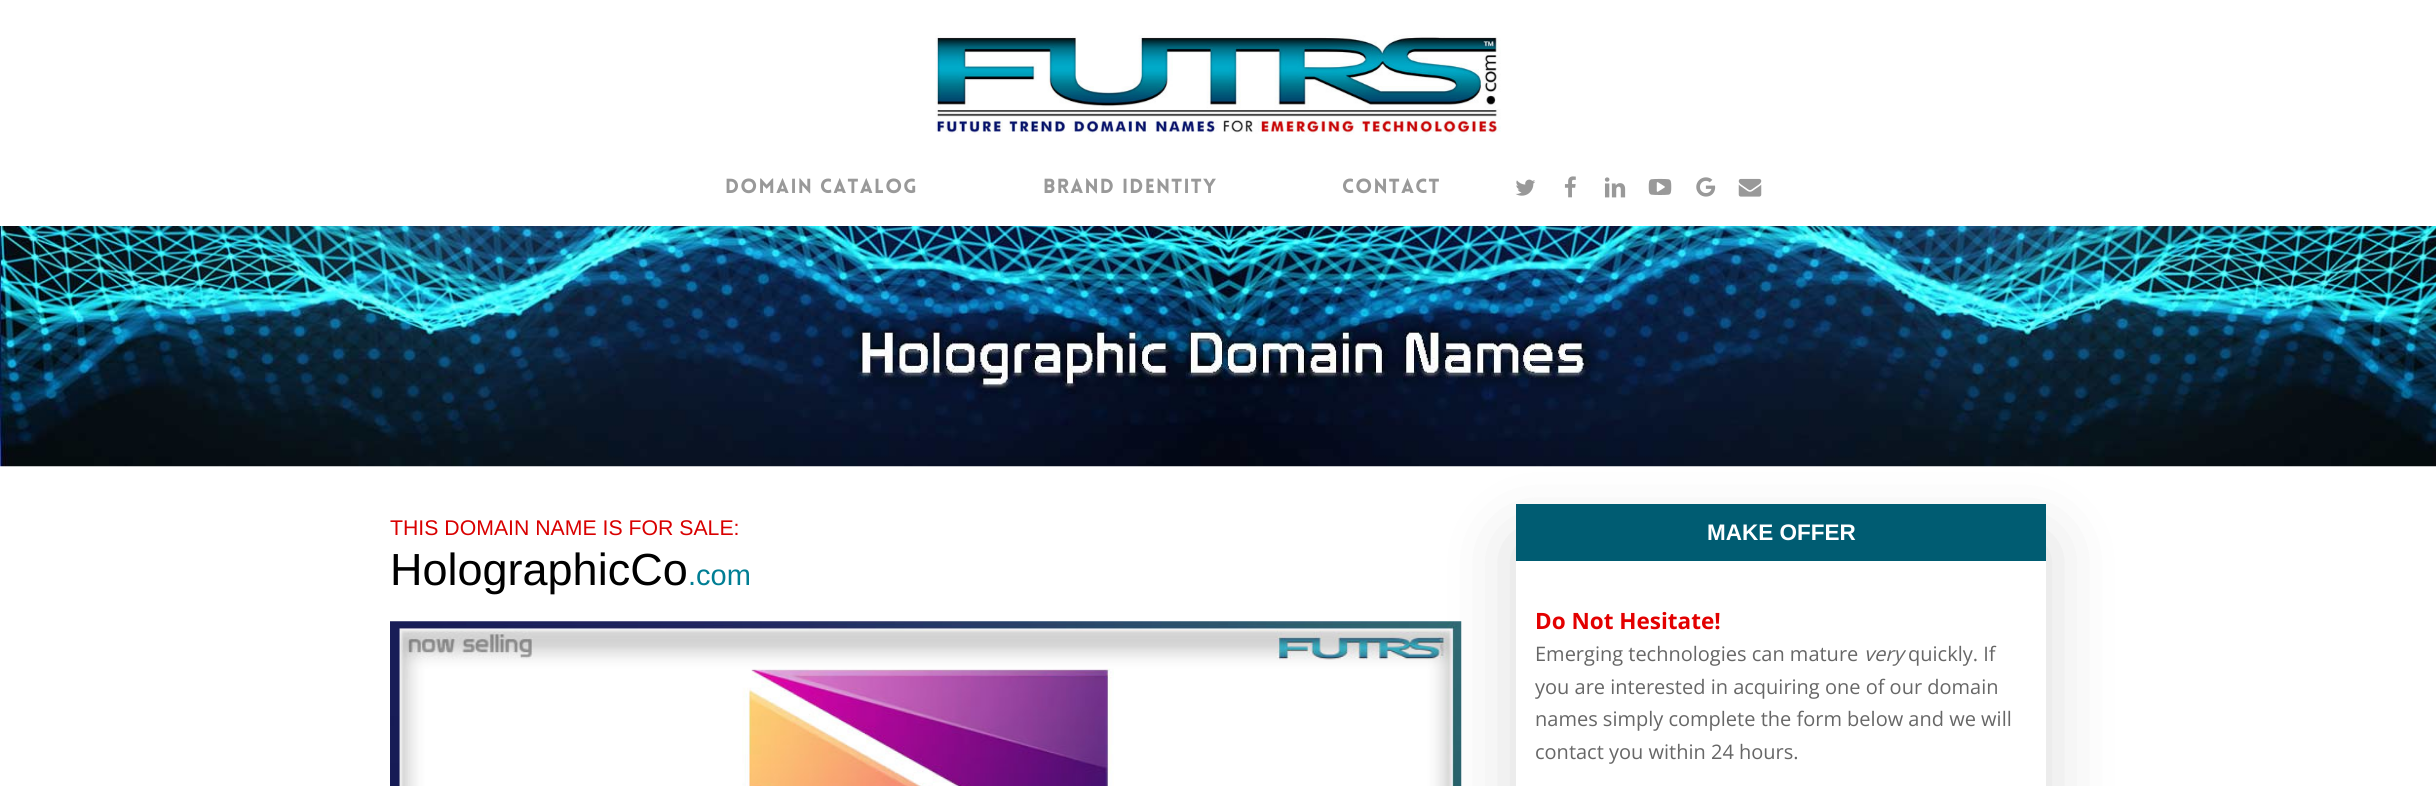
#include <cairo/cairo.h>
#include <math.h>
#include <stddef.h>

typedef struct { double x, y; const char *s; } line_t;
static cairo_t *cr;

static void rgb(unsigned color)
{
	cairo_set_source_rgb(cr, (color >> 16) / 255.0, (color >> 8 & 255) / 255.0, (color & 255) / 255.0);
}

static void tracked(double x, double y, const char *s, double letter, double word)
{
	cairo_move_to(cr, x, y);
	while (*s) {
		char ch[5] = {0};
		int n = 0;
		do ch[n++] = *s++; while ((*s & 0xC0) == 0x80);
		cairo_show_text(cr, ch);
		cairo_rel_move_to(cr, letter + word * (*ch == ' '), 0);
	}
}

static void rrect(double x, double y, double w, double h, double r)
{
	cairo_new_sub_path(cr);
	cairo_arc(cr, x + w - r, y + h - r, r, 0, M_PI / 2);
	cairo_arc(cr, x + r, y + h - r, r, M_PI / 2, M_PI);
	cairo_arc(cr, x + r, y + r, r, M_PI, 1.5 * M_PI);
	cairo_arc(cr, x + w - r, y + r, r, 1.5 * M_PI, 2 * M_PI);
	cairo_close_path(cr);
}

static void soft_shadow(double x, double y, double w, double h, double r, double blur, double alpha)
{
	cairo_push_group_with_content(cr, CAIRO_CONTENT_ALPHA);
	cairo_set_operator(cr, CAIRO_OPERATOR_SOURCE);
	for (int i = 15; i >= -15 && fmin(w, h) + blur * i / 3 > 0; i -= 2) {
		double e = blur * i / 6;
		cairo_set_source_rgba(cr, 0, 0, 0, alpha * erfc((i - 1) / 8.5) / 2);
		rrect(x - e, y - e, w + 2 * e, h + 2 * e, fmax(0, fmin(r + e + blur * .6, fmin(w, h) / 2 + e)));
		cairo_fill(cr);
	}
	cairo_pattern_t *soft = cairo_pop_group(cr);
	cairo_mask(cr, soft);
	cairo_pattern_destroy(soft);
}

static void image(const char *path, double x, double y, double w, double h)
{
	cairo_surface_t *image = cairo_image_surface_create_from_png(path);
	cairo_save(cr);
	cairo_set_source_surface(cr, image, x, y);
	cairo_rectangle(cr, x, y, w, h);
	cairo_fill(cr);
	cairo_restore(cr);
	cairo_surface_destroy(image);
}

int main(void) {
	cairo_surface_t *surface = cairo_image_surface_create(CAIRO_FORMAT_RGB24, 2436, 786);
	cr = cairo_create(surface);
	cairo_font_options_t *options = cairo_font_options_create();
	cairo_font_options_set_hint_metrics(options, CAIRO_HINT_METRICS_OFF);
	cairo_font_options_set_hint_style(options, CAIRO_HINT_STYLE_NONE);
	cairo_set_font_options(cr, options);
	cairo_set_miter_limit(cr, 4);
	rgb(0xffffff);
	cairo_paint(cr);
	image("img/1.png", 935, 35, 566, 100);
	image("img/2.png", 1515, 179, 21, 17);
	image("img/3.png", 1564, 176, 12, 22);
	image("img/4.png", 1604, 177, 22, 21);
	image("img/5.png", 1648, 178, 24, 17);
	image("img/6.png", 1696, 177, 20, 20);
	image("img/7.png", 1738, 178, 24, 19);
	image("img/8.png", 0, 226, 2436, 241);
	cairo_save(cr);
	cairo_set_fill_rule(cr, CAIRO_FILL_RULE_EVEN_ODD);
	cairo_new_path(cr);
	cairo_move_to(cr, 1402, 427);
	cairo_line_to(cr, 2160, 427);
	cairo_line_to(cr, 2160, 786);
	cairo_line_to(cr, 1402, 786);
	cairo_close_path(cr);
	cairo_move_to(cr, 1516, 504);
	cairo_line_to(cr, 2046, 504);
	cairo_line_to(cr, 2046, 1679);
	cairo_line_to(cr, 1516, 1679);
	cairo_close_path(cr);
	cairo_clip(cr);
	rgb(0x000000);
	soft_shadow(1516, 541, 530, 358, 0, 37.5, 0.15);
	cairo_restore(cr);
	image("img/9.png", 390, 621, 1072, 165);
	rgb(0x005c72);
	cairo_rectangle(cr, 1516, 504, 530, 57);
	cairo_fill(cr);
	rgb(0xffffff);
	cairo_rectangle(cr, 1516, 591, 1, 195);
	cairo_fill(cr);
	cairo_select_font_face(cr, "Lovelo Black", CAIRO_FONT_SLANT_NORMAL, CAIRO_FONT_WEIGHT_NORMAL);
	cairo_set_font_size(cr, 20);
	rgb(0x999999);
	{
		static const line_t items[] = {
			{725, 193, "Domain Catalog"},
			{1043, 193, "Brand Identity"},
			{1342, 193, "Contact"},
		};
		for (size_t i = 0; i < sizeof items / sizeof *items; i++) {
			tracked(items[i].x, items[i].y, items[i].s, 1.25, 0);
		}
	}
	cairo_select_font_face(cr, "Liberation Sans", CAIRO_FONT_SLANT_NORMAL, CAIRO_FONT_WEIGHT_NORMAL);
	cairo_set_font_size(cr, 21.25);
	rgb(0xd90000);
	cairo_move_to(cr, 390, 535);
	cairo_show_text(cr, "THIS DOMAIN NAME IS FOR SALE:");
	cairo_set_font_size(cr, 45);
	rgb(0x000000);
	cairo_move_to(cr, 390, 585);
	cairo_show_text(cr, "HolographicCo");
	cairo_set_font_size(cr, 29);
	rgb(0x007e94);
	cairo_move_to(cr, 688, 585);
	cairo_show_text(cr, ".com");
	cairo_select_font_face(cr, "Liberation Sans", CAIRO_FONT_SLANT_NORMAL, CAIRO_FONT_WEIGHT_BOLD);
	cairo_set_font_size(cr, 22.5);
	rgb(0xffffff);
	cairo_move_to(cr, 1707, 540);
	cairo_show_text(cr, "MAKE OFFER");
	cairo_select_font_face(cr, "Open Sans", CAIRO_FONT_SLANT_NORMAL, CAIRO_FONT_WEIGHT_BOLD);
	rgb(0xe30000);
	cairo_move_to(cr, 1535, 629);
	cairo_show_text(cr, "Do Not Hesitate!");
	cairo_select_font_face(cr, "Open Sans", CAIRO_FONT_SLANT_NORMAL, CAIRO_FONT_WEIGHT_NORMAL);
	cairo_set_font_size(cr, 20);
	rgb(0x676767);
	cairo_move_to(cr, 1535, 661);
	cairo_show_text(cr, "Emerging technologies can mature");
	cairo_select_font_face(cr, "Open Sans", CAIRO_FONT_SLANT_ITALIC, CAIRO_FONT_WEIGHT_NORMAL);
	cairo_move_to(cr, 1864, 661);
	cairo_show_text(cr, "very");
	cairo_select_font_face(cr, "Open Sans", CAIRO_FONT_SLANT_NORMAL, CAIRO_FONT_WEIGHT_NORMAL);
	{
		static const line_t items[] = {
			{1908, 661, "quickly. If"},
			{1535, 694, "you are interested in acquiring one of our domain"},
			{1535, 726, "names simply complete the form below and we will"},
			{1535, 759, "contact you within 24 hours."},
		};
		for (size_t i = 0; i < sizeof items / sizeof *items; i++) {
			cairo_move_to(cr, items[i].x, items[i].y);
			cairo_show_text(cr, items[i].s);
		}
	}
	cairo_surface_write_to_png(surface, "page.png");
	cairo_font_options_destroy(options);
	cairo_destroy(cr);
	cairo_surface_destroy(surface);
	return 0;
}
